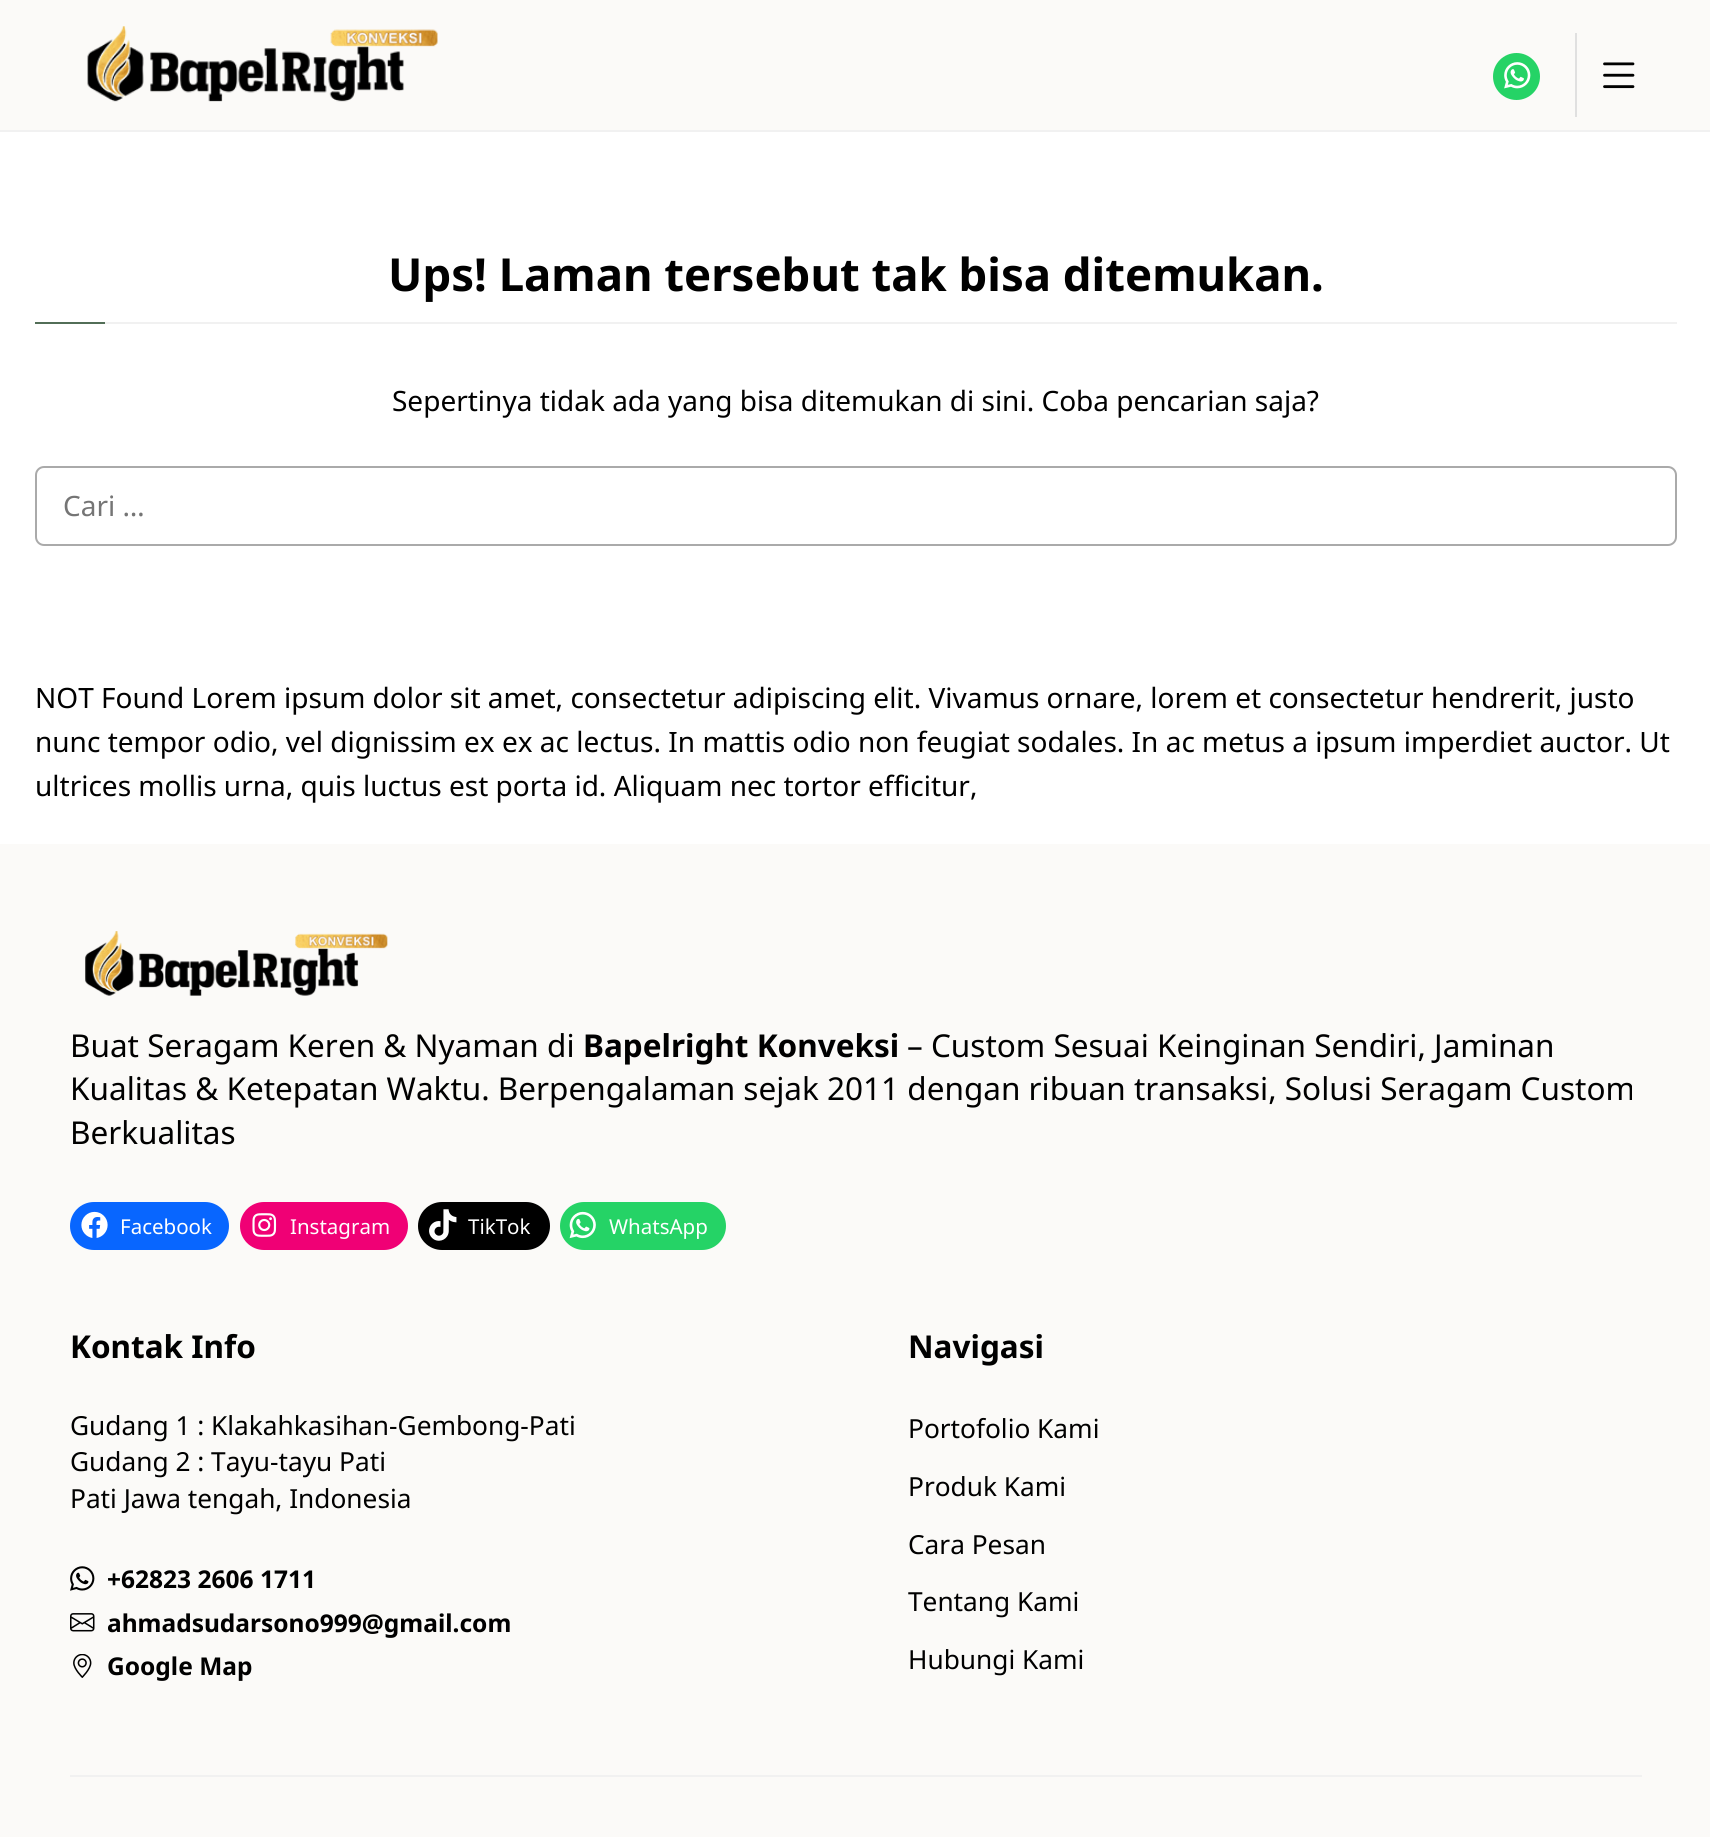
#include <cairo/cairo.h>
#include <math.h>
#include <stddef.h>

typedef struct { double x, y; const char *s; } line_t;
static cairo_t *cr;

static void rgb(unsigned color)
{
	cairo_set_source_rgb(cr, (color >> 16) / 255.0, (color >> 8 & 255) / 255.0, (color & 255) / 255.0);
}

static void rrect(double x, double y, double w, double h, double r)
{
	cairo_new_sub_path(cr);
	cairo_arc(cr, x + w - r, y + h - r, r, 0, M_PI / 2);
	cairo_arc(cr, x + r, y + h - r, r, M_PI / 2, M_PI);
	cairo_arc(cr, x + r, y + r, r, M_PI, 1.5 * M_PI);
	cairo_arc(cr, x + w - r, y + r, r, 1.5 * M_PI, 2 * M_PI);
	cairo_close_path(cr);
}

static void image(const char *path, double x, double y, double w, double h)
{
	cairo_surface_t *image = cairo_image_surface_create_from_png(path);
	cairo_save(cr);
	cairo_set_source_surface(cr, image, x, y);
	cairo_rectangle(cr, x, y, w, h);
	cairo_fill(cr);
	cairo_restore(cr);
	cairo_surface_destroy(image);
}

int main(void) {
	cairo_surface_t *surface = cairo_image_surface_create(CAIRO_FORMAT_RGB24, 1710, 1837);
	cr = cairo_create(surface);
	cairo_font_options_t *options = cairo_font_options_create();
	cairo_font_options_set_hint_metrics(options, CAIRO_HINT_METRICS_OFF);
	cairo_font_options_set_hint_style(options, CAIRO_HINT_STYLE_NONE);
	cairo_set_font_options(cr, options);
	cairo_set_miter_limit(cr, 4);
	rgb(0xffffff);
	cairo_paint(cr);
	rgb(0xfbfaf8);
	cairo_rectangle(cr, 0, 0, 1710, 130);
	cairo_fill(cr);
	rgb(0xf1f1f1);
	cairo_rectangle(cr, 0, 130, 1710, 2);
	cairo_fill(cr);
	image("img/1.png", 87, 26, 351, 76);
	rgb(0x25d366);
	cairo_arc(cr, 1516.5, 76.5, 23.5, 0, 2 * M_PI);
	cairo_fill(cr);
	image("img/2.png", 1504, 62, 27, 27);
	rgb(0xe0e0e0);
	cairo_rectangle(cr, 1575, 33, 2, 84);
	cairo_fill(cr);
	image("img/3.png", 1603, 62, 32, 27);
	rgb(0xf1f1f1);
	cairo_rectangle(cr, 105, 322, 1572, 2);
	cairo_fill(cr);
	rgb(0x526e57);
	cairo_rectangle(cr, 35, 322, 70, 2);
	cairo_fill(cr);
	rrect(36, 467, 1640, 78, 8);
	rgb(0xaaaaaa);
	cairo_stroke(cr);
	rgb(0xfbfaf8);
	cairo_rectangle(cr, 0, 844, 1710, 993);
	cairo_fill(cr);
	image("img/4.png", 85, 931, 303, 65);
	rgb(0x0866ff);
	rrect(70, 1202, 159, 48, 24);
	cairo_fill(cr);
	image("img/5.png", 81, 1211, 27, 27);
	rgb(0xf00075);
	rrect(240, 1202, 168, 48, 24);
	cairo_fill(cr);
	image("img/6.png", 252, 1213, 25, 24);
	rgb(0x000000);
	rrect(418, 1202, 132, 48, 24);
	cairo_fill(cr);
	image("img/7.png", 429, 1209, 28, 32);
	rgb(0x25d366);
	rrect(560, 1202, 166, 48, 24);
	cairo_fill(cr);
	image("img/8.png", 569, 1211, 27, 28);
	image("img/9.png", 70, 1566, 25, 25);
	image("img/10.png", 70, 1613, 25, 19);
	image("img/11.png", 73, 1654, 19, 24);
	rgb(0xf1f1f1);
	cairo_rectangle(cr, 70, 1775, 1572, 2);
	cairo_fill(cr);
	cairo_select_font_face(cr, "Noto Sans", CAIRO_FONT_SLANT_NORMAL, CAIRO_FONT_WEIGHT_BOLD);
	cairo_set_font_size(cr, 45.5);
	rgb(0x000000);
	cairo_move_to(cr, 388, 291);
	cairo_show_text(cr, "Ups! Laman tersebut tak bisa ditemukan.");
	cairo_select_font_face(cr, "Noto Sans", CAIRO_FONT_SLANT_NORMAL, CAIRO_FONT_WEIGHT_NORMAL);
	cairo_set_font_size(cr, 28);
	cairo_move_to(cr, 392, 411);
	cairo_show_text(cr, "Sepertinya tidak ada yang bisa ditemukan di sini. Coba pencarian saja?");
	rgb(0x757575);
	cairo_move_to(cr, 63, 516);
	cairo_show_text(cr, "Cari …");
	rgb(0x000000);
	{
		static const line_t items[] = {
			{35, 708, "NOT Found Lorem ipsum dolor sit amet, consectetur adipiscing elit. Vivamus ornare, lorem et consectetur hendrerit, justo"},
			{35, 752, "nunc tempor odio, vel dignissim ex ex ac lectus. In mattis odio non feugiat sodales. In ac metus a ipsum imperdiet auctor. Ut"},
			{35, 796, "ultrices mollis urna, quis luctus est porta id. Aliquam nec tortor efficitur,"},
		};
		for (size_t i = 0; i < sizeof items / sizeof *items; i++) {
			cairo_move_to(cr, items[i].x, items[i].y);
			cairo_show_text(cr, items[i].s);
		}
	}
	cairo_set_font_size(cr, 31.5);
	cairo_move_to(cr, 70, 1057);
	cairo_show_text(cr, "Buat Seragam Keren & Nyaman di");
	cairo_select_font_face(cr, "Noto Sans", CAIRO_FONT_SLANT_NORMAL, CAIRO_FONT_WEIGHT_BOLD);
	cairo_move_to(cr, 583, 1057);
	cairo_show_text(cr, "Bapelright Konveksi");
	cairo_select_font_face(cr, "Noto Sans", CAIRO_FONT_SLANT_NORMAL, CAIRO_FONT_WEIGHT_NORMAL);
	{
		static const line_t items[] = {
			{907, 1057, "– Custom Sesuai Keinginan Sendiri, Jaminan"},
			{70, 1100, "Kualitas & Ketepatan Waktu. Berpengalaman sejak 2011 dengan ribuan transaksi, Solusi Seragam Custom"},
			{70, 1144, "Berkualitas"},
		};
		for (size_t i = 0; i < sizeof items / sizeof *items; i++) {
			cairo_move_to(cr, items[i].x, items[i].y);
			cairo_show_text(cr, items[i].s);
		}
	}
	cairo_set_font_size(cr, 20.5);
	rgb(0xffffff);
	{
		static const line_t items[] = {
			{120, 1234, "Facebook"},
			{290, 1234, "Instagram"},
			{468, 1234, "TikTok"},
			{609, 1234, "WhatsApp"},
		};
		for (size_t i = 0; i < sizeof items / sizeof *items; i++) {
			cairo_move_to(cr, items[i].x, items[i].y);
			cairo_show_text(cr, items[i].s);
		}
	}
	cairo_select_font_face(cr, "Noto Sans", CAIRO_FONT_SLANT_NORMAL, CAIRO_FONT_WEIGHT_BOLD);
	cairo_set_font_size(cr, 31.5);
	rgb(0x000000);
	cairo_move_to(cr, 70, 1358);
	cairo_show_text(cr, "Kontak Info");
	cairo_select_font_face(cr, "Noto Sans", CAIRO_FONT_SLANT_NORMAL, CAIRO_FONT_WEIGHT_NORMAL);
	cairo_set_font_size(cr, 26.25);
	{
		static const line_t items[] = {
			{70, 1435, "Gudang 1 : Klakahkasihan-Gembong-Pati"},
			{70, 1471, "Gudang 2 : Tayu-tayu Pati"},
			{70, 1508, "Pati Jawa tengah, Indonesia"},
		};
		for (size_t i = 0; i < sizeof items / sizeof *items; i++) {
			cairo_move_to(cr, items[i].x, items[i].y);
			cairo_show_text(cr, items[i].s);
		}
	}
	cairo_select_font_face(cr, "Noto Sans", CAIRO_FONT_SLANT_NORMAL, CAIRO_FONT_WEIGHT_BOLD);
	cairo_set_font_size(cr, 24.5);
	{
		static const line_t items[] = {
			{107, 1588, "+62823 2606 1711"},
			{107, 1632, "ahmadsudarsono999@gmail.com"},
			{107, 1675, "Google Map"},
		};
		for (size_t i = 0; i < sizeof items / sizeof *items; i++) {
			cairo_move_to(cr, items[i].x, items[i].y);
			cairo_show_text(cr, items[i].s);
		}
	}
	cairo_set_font_size(cr, 31.5);
	cairo_move_to(cr, 908, 1358);
	cairo_show_text(cr, "Navigasi");
	cairo_select_font_face(cr, "Noto Sans", CAIRO_FONT_SLANT_NORMAL, CAIRO_FONT_WEIGHT_NORMAL);
	cairo_set_font_size(cr, 26.25);
	{
		static const line_t items[] = {
			{908, 1438, "Portofolio Kami"},
			{908, 1496, "Produk Kami"},
			{908, 1554, "Cara Pesan"},
			{908, 1611, "Tentang Kami"},
			{908, 1669, "Hubungi Kami"},
		};
		for (size_t i = 0; i < sizeof items / sizeof *items; i++) {
			cairo_move_to(cr, items[i].x, items[i].y);
			cairo_show_text(cr, items[i].s);
		}
	}
	cairo_surface_write_to_png(surface, "page.png");
	cairo_font_options_destroy(options);
	cairo_destroy(cr);
	cairo_surface_destroy(surface);
	return 0;
}
